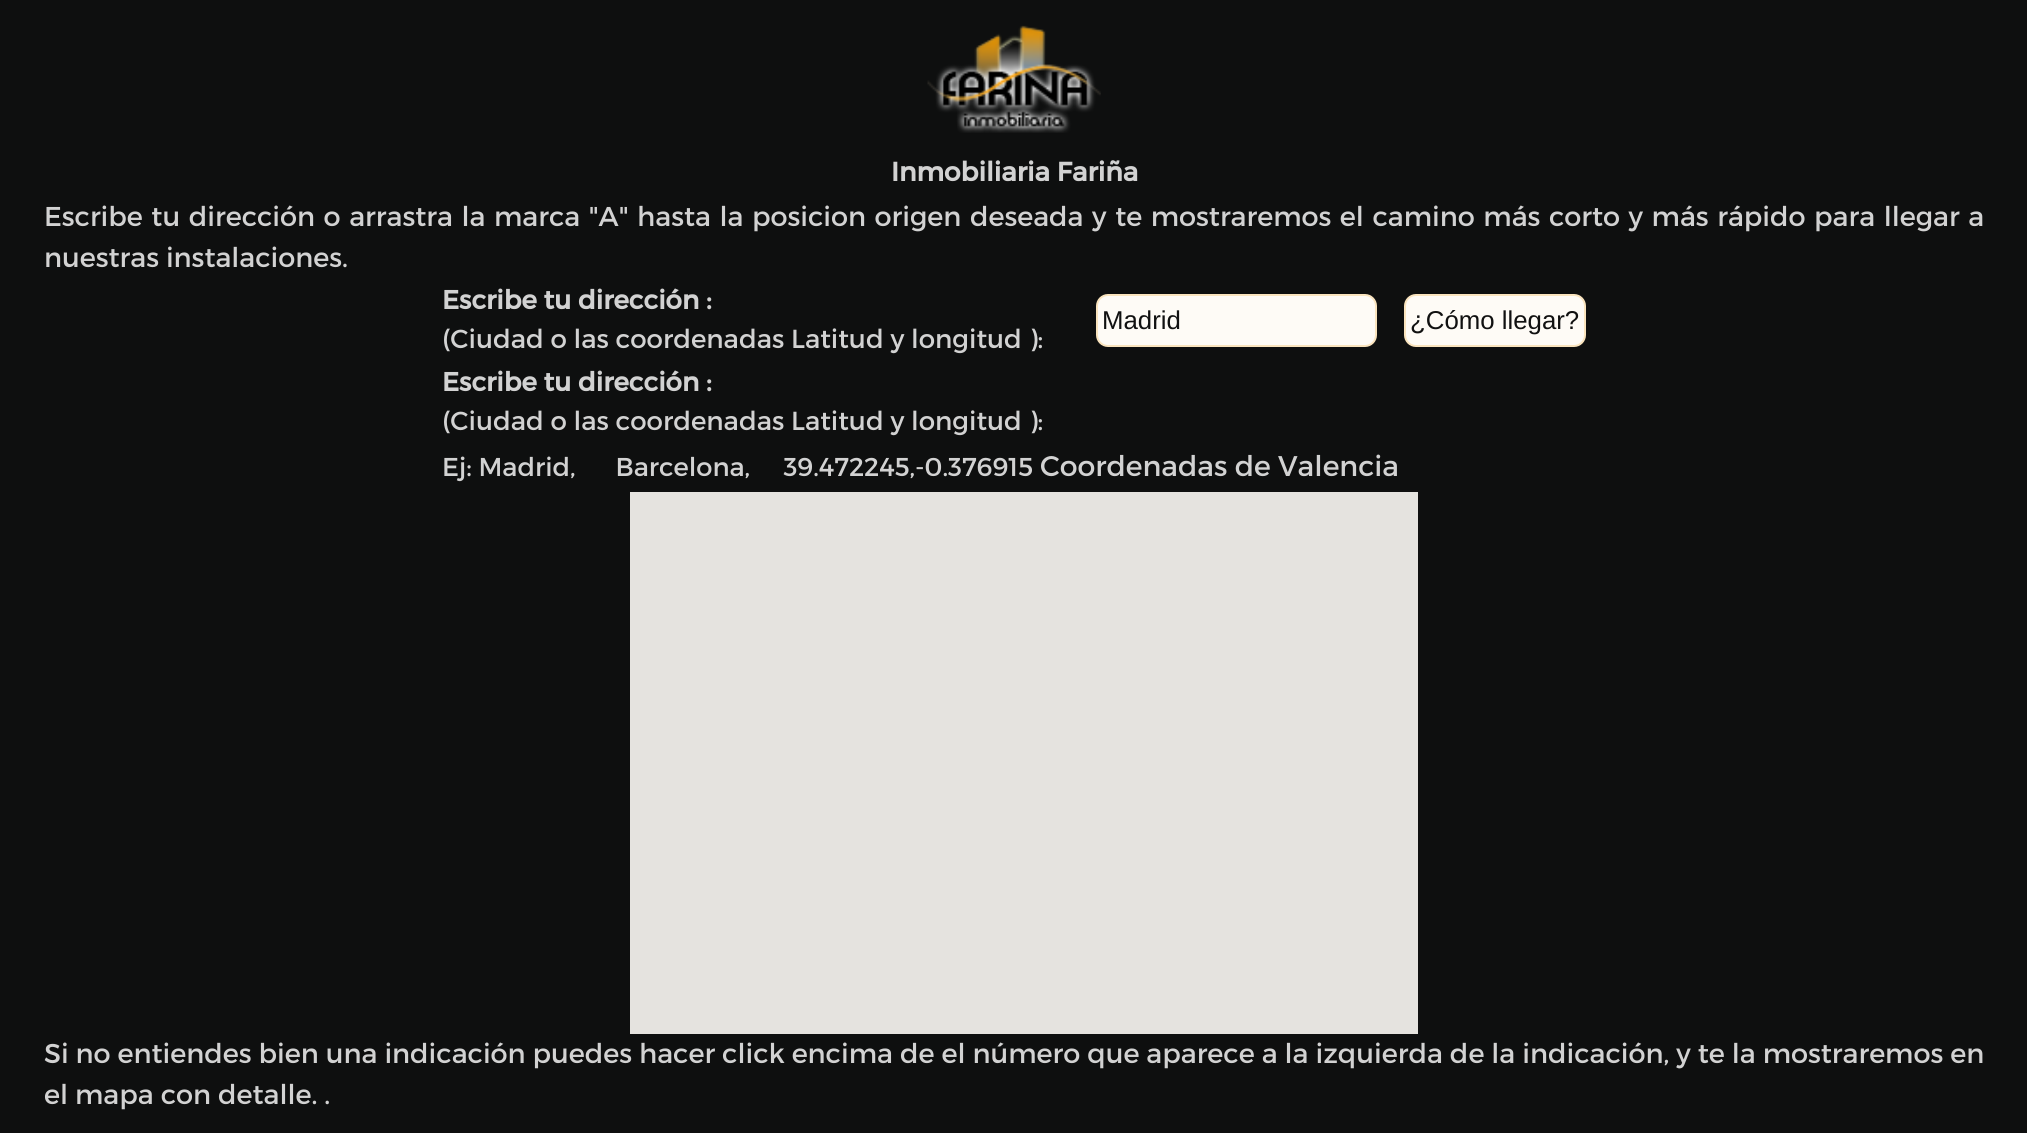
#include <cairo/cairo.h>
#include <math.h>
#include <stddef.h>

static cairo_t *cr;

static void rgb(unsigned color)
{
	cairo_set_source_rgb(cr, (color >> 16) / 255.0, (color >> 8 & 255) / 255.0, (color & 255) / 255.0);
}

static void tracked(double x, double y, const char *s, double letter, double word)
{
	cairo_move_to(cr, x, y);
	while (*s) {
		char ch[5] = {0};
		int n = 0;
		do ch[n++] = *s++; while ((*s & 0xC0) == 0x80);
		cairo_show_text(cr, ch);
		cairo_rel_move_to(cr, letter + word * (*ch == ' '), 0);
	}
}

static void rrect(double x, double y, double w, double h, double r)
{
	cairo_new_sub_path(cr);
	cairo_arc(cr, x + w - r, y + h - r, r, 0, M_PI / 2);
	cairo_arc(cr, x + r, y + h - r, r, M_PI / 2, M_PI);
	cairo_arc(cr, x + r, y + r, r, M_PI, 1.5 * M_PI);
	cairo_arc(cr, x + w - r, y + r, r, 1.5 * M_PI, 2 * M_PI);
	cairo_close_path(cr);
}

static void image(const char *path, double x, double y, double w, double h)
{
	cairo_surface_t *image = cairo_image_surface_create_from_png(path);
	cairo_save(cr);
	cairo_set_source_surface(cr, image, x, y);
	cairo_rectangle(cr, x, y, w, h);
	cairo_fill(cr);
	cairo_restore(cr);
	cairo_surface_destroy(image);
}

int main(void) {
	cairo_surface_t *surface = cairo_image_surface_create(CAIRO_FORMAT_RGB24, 2027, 1133);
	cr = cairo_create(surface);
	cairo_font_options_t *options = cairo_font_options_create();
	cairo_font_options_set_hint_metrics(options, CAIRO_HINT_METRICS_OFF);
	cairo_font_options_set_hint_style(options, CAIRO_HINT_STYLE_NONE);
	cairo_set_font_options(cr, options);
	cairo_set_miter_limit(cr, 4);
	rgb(0x0e0f0f);
	cairo_paint(cr);
	image("img/1.png", 927, 25, 174, 108);
	rgb(0xfefbf6);
	rrect(1097, 295, 279, 51, 11);
	cairo_fill_preserve(cr);
	rgb(0xfae4be);
	cairo_stroke(cr);
	rgb(0xfefbf6);
	rrect(1405, 295, 180, 51, 11);
	cairo_fill_preserve(cr);
	rgb(0xfae4be);
	cairo_stroke(cr);
	rgb(0xe5e3df);
	cairo_rectangle(cr, 630, 492, 788, 542);
	cairo_fill(cr);
	cairo_select_font_face(cr, "Montserrat", CAIRO_FONT_SLANT_NORMAL, CAIRO_FONT_WEIGHT_BOLD);
	cairo_set_font_size(cr, 26.4);
	rgb(0xd2d2d2);
	cairo_move_to(cr, 891, 181);
	cairo_show_text(cr, "Inmobiliaria Fariña");
	cairo_select_font_face(cr, "Montserrat", CAIRO_FONT_SLANT_NORMAL, CAIRO_FONT_WEIGHT_NORMAL);
	cairo_set_font_size(cr, 27.17);
	tracked(44, 226, "Escribe tu dirección o arrastra la marca \"A\" hasta la posicion origen deseada y te mostraremos el camino más corto y más rápido para llegar a", 0, 1.6);
	cairo_move_to(cr, 44, 267);
	cairo_show_text(cr, "nuestras instalaciones.");
	cairo_select_font_face(cr, "Montserrat", CAIRO_FONT_SLANT_NORMAL, CAIRO_FONT_WEIGHT_BOLD);
	cairo_set_font_size(cr, 26.1);
	cairo_move_to(cr, 442, 309);
	cairo_show_text(cr, "Escribe tu dirección :");
	cairo_select_font_face(cr, "Montserrat", CAIRO_FONT_SLANT_NORMAL, CAIRO_FONT_WEIGHT_NORMAL);
	cairo_move_to(cr, 442, 348);
	cairo_show_text(cr, "(Ciudad o las coordenadas Latitud y longitud ):");
	cairo_select_font_face(cr, "Liberation Sans", CAIRO_FONT_SLANT_NORMAL, CAIRO_FONT_WEIGHT_NORMAL);
	cairo_set_font_size(cr, 25.8);
	rgb(0x111111);
	cairo_move_to(cr, 1102, 329);
	cairo_show_text(cr, "Madrid");
	cairo_move_to(cr, 1410, 329);
	cairo_show_text(cr, "¿Cómo llegar?");
	cairo_select_font_face(cr, "Montserrat", CAIRO_FONT_SLANT_NORMAL, CAIRO_FONT_WEIGHT_BOLD);
	cairo_set_font_size(cr, 26.1);
	rgb(0xd2d2d2);
	cairo_move_to(cr, 442, 391);
	cairo_show_text(cr, "Escribe tu dirección :");
	cairo_select_font_face(cr, "Montserrat", CAIRO_FONT_SLANT_NORMAL, CAIRO_FONT_WEIGHT_NORMAL);
	cairo_move_to(cr, 442, 430);
	cairo_show_text(cr, "(Ciudad o las coordenadas Latitud y longitud ):");
	cairo_set_font_size(cr, 25.8);
	cairo_move_to(cr, 442, 476);
	cairo_show_text(cr, "Ej: Madrid,      Barcelona,     39.472245,-0.376915");
	cairo_set_font_size(cr, 28.4);
	cairo_move_to(cr, 1040, 476);
	cairo_show_text(cr, "Coordenadas de Valencia");
	cairo_set_font_size(cr, 27.17);
	cairo_move_to(cr, 44, 1063);
	cairo_show_text(cr, "Si no entiendes bien una indicación puedes hacer click encima de el número que aparece a la izquierda de la indicación, y te la mostraremos en");
	cairo_move_to(cr, 44, 1104);
	cairo_show_text(cr, "el mapa con detalle. .");
	cairo_surface_write_to_png(surface, "page.png");
	cairo_font_options_destroy(options);
	cairo_destroy(cr);
	cairo_surface_destroy(surface);
	return 0;
}
